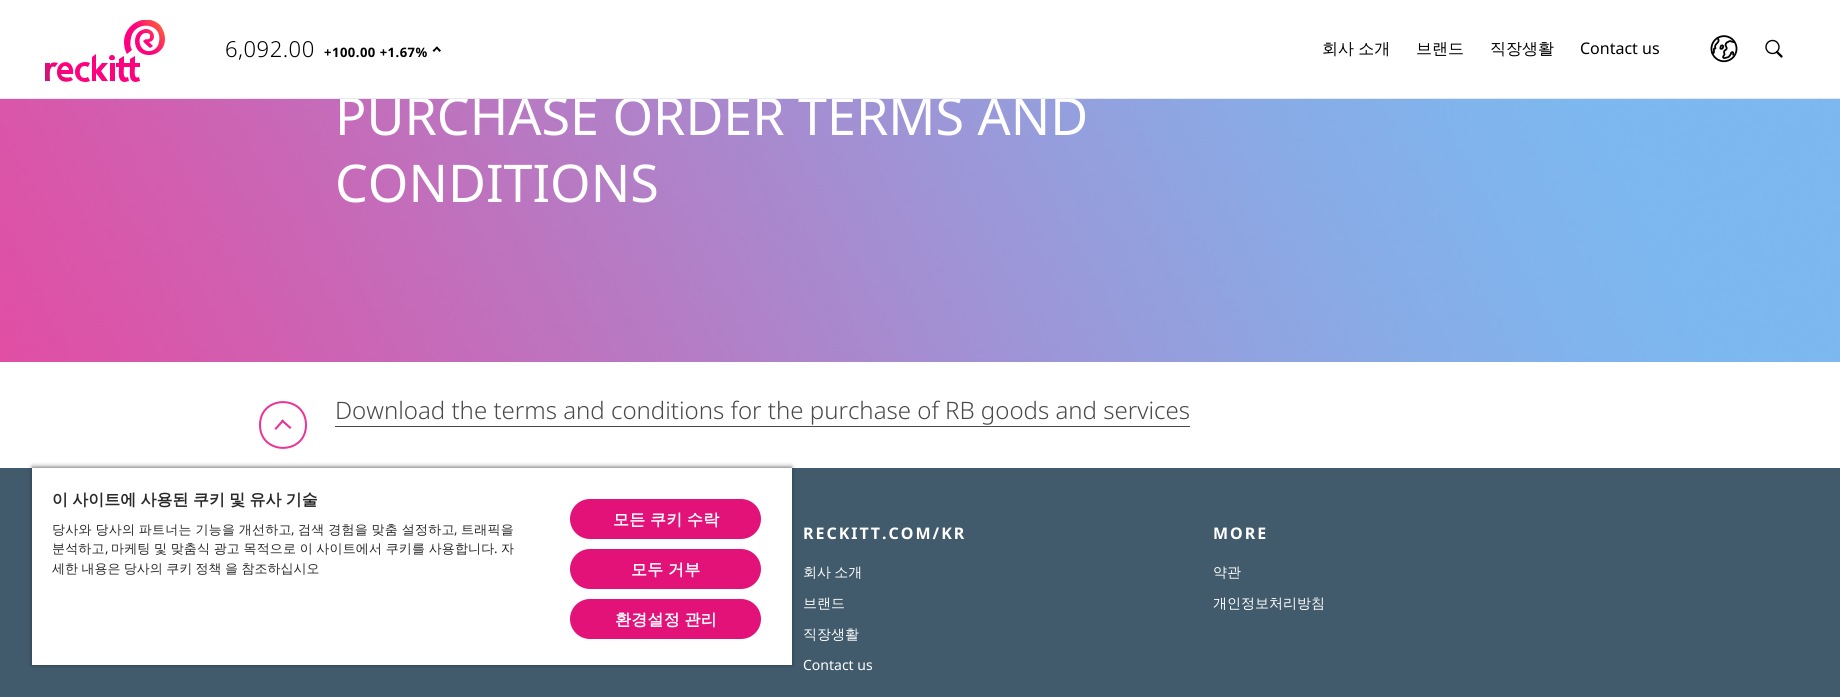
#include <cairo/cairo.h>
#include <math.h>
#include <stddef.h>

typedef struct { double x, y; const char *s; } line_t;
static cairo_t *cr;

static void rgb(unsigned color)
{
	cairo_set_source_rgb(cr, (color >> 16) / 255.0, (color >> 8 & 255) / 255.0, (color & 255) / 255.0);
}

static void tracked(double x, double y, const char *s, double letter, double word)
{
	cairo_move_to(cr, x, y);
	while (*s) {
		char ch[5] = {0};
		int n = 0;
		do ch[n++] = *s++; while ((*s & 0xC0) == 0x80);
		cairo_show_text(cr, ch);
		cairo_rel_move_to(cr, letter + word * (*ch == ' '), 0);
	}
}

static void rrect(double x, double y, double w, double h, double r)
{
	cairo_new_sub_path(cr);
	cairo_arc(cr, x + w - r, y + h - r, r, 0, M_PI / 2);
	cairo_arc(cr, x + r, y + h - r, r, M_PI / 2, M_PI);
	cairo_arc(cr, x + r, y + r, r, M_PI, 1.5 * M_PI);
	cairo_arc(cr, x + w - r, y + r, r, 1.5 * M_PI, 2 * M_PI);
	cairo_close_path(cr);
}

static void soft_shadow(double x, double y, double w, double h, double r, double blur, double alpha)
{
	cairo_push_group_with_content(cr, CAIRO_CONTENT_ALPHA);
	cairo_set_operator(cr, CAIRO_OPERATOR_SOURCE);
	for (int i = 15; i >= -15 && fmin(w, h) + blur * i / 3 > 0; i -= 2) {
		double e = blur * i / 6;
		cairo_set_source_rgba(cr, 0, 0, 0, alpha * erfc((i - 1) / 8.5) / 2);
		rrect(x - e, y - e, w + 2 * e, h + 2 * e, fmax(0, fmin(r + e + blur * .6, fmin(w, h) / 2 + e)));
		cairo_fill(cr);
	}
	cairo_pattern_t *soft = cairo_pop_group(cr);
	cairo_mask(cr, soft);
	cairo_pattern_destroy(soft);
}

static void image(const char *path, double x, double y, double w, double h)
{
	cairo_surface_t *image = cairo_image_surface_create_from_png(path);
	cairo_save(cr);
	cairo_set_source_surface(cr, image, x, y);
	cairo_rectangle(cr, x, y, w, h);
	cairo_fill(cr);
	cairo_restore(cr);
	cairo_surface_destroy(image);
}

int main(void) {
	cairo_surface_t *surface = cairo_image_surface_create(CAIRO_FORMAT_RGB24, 1840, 697);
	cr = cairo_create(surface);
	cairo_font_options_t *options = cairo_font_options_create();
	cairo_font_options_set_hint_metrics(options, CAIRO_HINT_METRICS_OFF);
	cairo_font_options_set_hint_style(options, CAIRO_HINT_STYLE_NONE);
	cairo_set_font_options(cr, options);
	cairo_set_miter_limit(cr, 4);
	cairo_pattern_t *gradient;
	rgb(0xffffff);
	cairo_paint(cr);
	gradient = cairo_pattern_create_linear(56, 95, 126, 45);
	cairo_pattern_add_color_stop_rgba(gradient, 0, 0.769, 0.098, 0.455, 1);
	cairo_pattern_add_color_stop_rgba(gradient, 0.25, 1, 0, 0.498, 1);
	cairo_pattern_add_color_stop_rgba(gradient, 1, 1, 0, 0.498, 1);
	cairo_set_source(cr, gradient);
	cairo_pattern_destroy(gradient);
	cairo_set_fill_rule(cr, CAIRO_FILL_RULE_EVEN_ODD);
	cairo_new_path(cr);
	cairo_move_to(cr, 92, 57);
	cairo_line_to(cr, 96, 54);
	cairo_line_to(cr, 96, 70);
	cairo_line_to(cr, 102, 63);
	cairo_line_to(cr, 108, 63);
	cairo_line_to(cr, 101, 71);
	cairo_line_to(cr, 108, 81);
	cairo_line_to(cr, 102, 81);
	cairo_line_to(cr, 96, 73);
	cairo_line_to(cr, 96, 81);
	cairo_line_to(cr, 92, 81);
	cairo_close_path(cr);
	cairo_move_to(cr, 109, 58);
	cairo_curve_to(cr, 109, 54, 115, 54, 115, 58);
	cairo_curve_to(cr, 115, 61, 109, 61, 109, 58);
	cairo_close_path(cr);
	cairo_move_to(cr, 130, 59);
	cairo_line_to(cr, 135, 56);
	cairo_line_to(cr, 135, 63);
	cairo_line_to(cr, 140, 63);
	cairo_line_to(cr, 140, 67);
	cairo_line_to(cr, 135, 67);
	cairo_curve_to(cr, 135, 69, 133, 80, 139, 77);
	cairo_line_to(cr, 140, 81);
	cairo_line_to(cr, 136, 82);
	cairo_curve_to(cr, 128, 82, 130, 72, 130, 67);
	cairo_line_to(cr, 124, 67);
	cairo_curve_to(cr, 124, 69, 122, 80, 128, 77);
	cairo_line_to(cr, 129, 81);
	cairo_line_to(cr, 125, 82);
	cairo_curve_to(cr, 117, 82, 119, 72, 119, 67);
	cairo_line_to(cr, 116, 67);
	cairo_line_to(cr, 116, 63);
	cairo_line_to(cr, 119, 63);
	cairo_line_to(cr, 119, 59);
	cairo_line_to(cr, 124, 56);
	cairo_line_to(cr, 124, 63);
	cairo_line_to(cr, 130, 63);
	cairo_close_path(cr);
	cairo_move_to(cr, 50, 65);
	cairo_curve_to(cr, 51, 62, 55, 62, 58, 63);
	cairo_line_to(cr, 55, 67);
	cairo_curve_to(cr, 48, 64, 50, 78, 50, 81);
	cairo_line_to(cr, 45, 81);
	cairo_line_to(cr, 45, 63);
	cairo_line_to(cr, 50, 63);
	cairo_close_path(cr);
	cairo_move_to(cr, 75, 72);
	cairo_curve_to(cr, 75, 64, 83, 60, 90, 63);
	cairo_line_to(cr, 88, 67);
	cairo_curve_to(cr, 77, 61, 77, 83, 88, 77);
	cairo_line_to(cr, 90, 81);
	cairo_curve_to(cr, 83, 84, 75, 80, 75, 72);
	cairo_close_path(cr);
	cairo_move_to(cr, 57, 72);
	cairo_curve_to(cr, 57, 59, 75, 58, 73, 74);
	cairo_line_to(cr, 61, 74);
	cairo_curve_to(cr, 62, 78, 68, 78, 71, 77);
	cairo_line_to(cr, 73, 80);
	cairo_curve_to(cr, 65, 84, 57, 81, 57, 72);
	cairo_close_path(cr);
	cairo_move_to(cr, 110, 81);
	cairo_line_to(cr, 110, 63);
	cairo_line_to(cr, 115, 63);
	cairo_line_to(cr, 115, 81);
	cairo_close_path(cr);
	cairo_move_to(cr, 65, 66);
	cairo_curve_to(cr, 63, 66, 62, 68, 61, 70);
	cairo_line_to(cr, 69, 70);
	cairo_curve_to(cr, 69, 68, 67, 66, 65, 66);
	cairo_close_path(cr);
	cairo_fill(cr);
	cairo_save(cr);
	cairo_set_fill_rule(cr, CAIRO_FILL_RULE_WINDING);
	cairo_rectangle(cr, 45, 20, 120, 62);
	cairo_clip(cr);
	gradient = cairo_pattern_create_linear(127, 52, 162, 27);
	cairo_pattern_add_color_stop_rgba(gradient, 0, 1, 0, 0.498, 1);
	cairo_pattern_add_color_stop_rgba(gradient, 0.5, 1, 0, 0.498, 1);
	cairo_pattern_add_color_stop_rgba(gradient, 1, 1, 0.349, 0.239, 1);
	cairo_set_source(cr, gradient);
	cairo_pattern_destroy(gradient);
	cairo_new_path(cr);
	cairo_move_to(cr, 124, 42);
	cairo_curve_to(cr, 124, 24, 146, 12, 160, 25);
	cairo_curve_to(cr, 163, 29, 165, 34, 165, 39);
	cairo_curve_to(cr, 165, 59, 135, 61, 135, 41);
	cairo_curve_to(cr, 135, 37, 137, 33, 140, 31);
	cairo_curve_to(cr, 142, 30, 144, 29, 146, 29);
	cairo_curve_to(cr, 155, 29, 157, 41, 149, 42);
	cairo_line_to(cr, 153, 46);
	cairo_line_to(cr, 150, 48);
	cairo_curve_to(cr, 148, 46, 145, 44, 143, 41);
	cairo_line_to(cr, 146, 39);
	cairo_curve_to(cr, 147, 40, 149, 39, 150, 38);
	cairo_line_to(cr, 150, 35);
	cairo_curve_to(cr, 150, 34, 148, 33, 147, 33);
	cairo_curve_to(cr, 137, 32, 137, 49, 147, 51);
	cairo_curve_to(cr, 153, 52, 158, 48, 159, 42);
	cairo_curve_to(cr, 163, 22, 134, 20, 131, 38);
	cairo_curve_to(cr, 130, 42, 130, 47, 132, 50);
	cairo_line_to(cr, 127, 54);
	cairo_curve_to(cr, 125, 51, 124, 46, 124, 42);
	cairo_close_path(cr);
	cairo_fill(cr);
	cairo_restore(cr);
	rgb(0x000000);
	cairo_set_fill_rule(cr, CAIRO_FILL_RULE_WINDING);
	cairo_new_path(cr);
	cairo_move_to(cr, 437, 46.5);
	cairo_line_to(cr, 441, 50.5);
	cairo_line_to(cr, 439.5, 52);
	cairo_line_to(cr, 435.5, 47.5);
	cairo_close_path(cr);
	cairo_fill(cr);
	cairo_new_path(cr);
	cairo_move_to(cr, 437, 46.5);
	cairo_line_to(cr, 438, 47.5);
	cairo_line_to(cr, 434, 52);
	cairo_line_to(cr, 432.5, 50.5);
	cairo_close_path(cr);
	cairo_fill(cr);
	image("img/1.png", 1710, 35, 28, 28);
	cairo_new_path(cr);
	cairo_move_to(cr, 1753.5, 48.5);
	cairo_curve_to(cr, 1753.5, 21, 1795.5, 21, 1795.5, 48.5);
	cairo_curve_to(cr, 1795.5, 76, 1753.5, 76, 1753.5, 48.5);
	cairo_close_path(cr);
	cairo_set_line_width(cr, 1);
	cairo_set_line_join(cr, CAIRO_LINE_JOIN_ROUND);
	cairo_set_dash(cr, (double[]){0, 130}, 2, 0);
	cairo_stroke(cr);
	cairo_arc(cr, 1772.5, 47, 6.5, 0, 2 * M_PI);
	cairo_set_line_width(cr, 1.4);
	cairo_set_line_join(cr, CAIRO_LINE_JOIN_MITER);
	cairo_set_dash(cr, NULL, 0, 0);
	cairo_stroke(cr);
	cairo_new_path(cr);
	cairo_move_to(cr, 1777, 52);
	cairo_line_to(cr, 1781.5, 56.5);
	cairo_set_line_width(cr, 2.3);
	cairo_set_line_cap(cr, CAIRO_LINE_CAP_ROUND);
	cairo_stroke(cr);
	image("img/2.png", 0, 99, 1840, 263);
	rgb(0x4a4a4a);
	cairo_rectangle(cr, 335, 426, 855, 1);
	cairo_fill(cr);
	rgb(0x415a6c);
	cairo_rectangle(cr, 0, 468, 1840, 229);
	cairo_fill(cr);
	rgb(0x000000);
	soft_shadow(32, 466, 760, 199, 0, 2, 0.35);
	cairo_save(cr);
	cairo_rectangle(cr, 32, 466, 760, 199);
	cairo_clip(cr);
	soft_shadow(32, 468, 760, 197, 0, 2, 0.2);
	cairo_restore(cr);
	rgb(0xffffff);
	cairo_rectangle(cr, 32, 468, 760, 197);
	cairo_fill(cr);
	rgb(0xe31279);
	rrect(570, 499, 191, 40, 20);
	cairo_fill(cr);
	rrect(570, 549, 191, 40, 20);
	cairo_fill(cr);
	rrect(570, 599, 191, 40, 20);
	cairo_fill(cr);
	cairo_new_path(cr);
	cairo_move_to(cr, 260, 425);
	cairo_curve_to(cr, 260, 394.5, 306, 394.5, 306, 425);
	cairo_curve_to(cr, 306, 455.5, 260, 455.5, 260, 425);
	cairo_close_path(cr);
	rgb(0xea3592);
	cairo_set_line_width(cr, 2);
	cairo_set_line_cap(cr, CAIRO_LINE_CAP_BUTT);
	cairo_stroke(cr);
	cairo_new_path(cr);
	cairo_move_to(cr, 282.5, 419.5);
	cairo_line_to(cr, 291.5, 427.5);
	cairo_line_to(cr, 290, 429);
	cairo_line_to(cr, 281, 421);
	cairo_close_path(cr);
	cairo_fill(cr);
	cairo_new_path(cr);
	cairo_move_to(cr, 282.5, 419.5);
	cairo_line_to(cr, 284, 421);
	cairo_line_to(cr, 276, 430);
	cairo_line_to(cr, 274.5, 428.5);
	cairo_close_path(cr);
	cairo_fill(cr);
	cairo_select_font_face(cr, "Noto Sans Light", CAIRO_FONT_SLANT_NORMAL, CAIRO_FONT_WEIGHT_NORMAL);
	cairo_set_font_size(cr, 22);
	rgb(0x000000);
	tracked(225, 57, "6,092.00", 0.5, 0);
	cairo_select_font_face(cr, "Noto Sans", CAIRO_FONT_SLANT_NORMAL, CAIRO_FONT_WEIGHT_BOLD);
	cairo_set_font_size(cr, 13);
	tracked(324, 57, "+100.00 +1.67%", 0.5, 0);
	cairo_select_font_face(cr, "WenQuanYi Zen Hei Medium", CAIRO_FONT_SLANT_NORMAL, CAIRO_FONT_WEIGHT_NORMAL);
	cairo_set_font_size(cr, 16);
	tracked(1322, 54, "회사 소개", 0, -0.5);
	cairo_move_to(cr, 1416, 54);
	cairo_show_text(cr, "브랜드");
	cairo_move_to(cr, 1490, 54);
	cairo_show_text(cr, "직장생활");
	cairo_select_font_face(cr, "Noto Sans", CAIRO_FONT_SLANT_NORMAL, CAIRO_FONT_WEIGHT_NORMAL);
	cairo_move_to(cr, 1580, 54);
	cairo_show_text(cr, "Contact us");
	cairo_set_font_size(cr, 52);
	rgb(0xffffff);
	cairo_move_to(cr, 335, 135);
	cairo_show_text(cr, "PURCHASE ORDER TERMS AND");
	rgb(0xe7e9ee);
	cairo_rectangle(cr, 0, 98, 1840, 1);
	cairo_fill(cr);
	rgb(0xffffff);
	cairo_move_to(cr, 335, 202);
	cairo_show_text(cr, "CONDITIONS");
	cairo_select_font_face(cr, "Noto Sans Light", CAIRO_FONT_SLANT_NORMAL, CAIRO_FONT_WEIGHT_NORMAL);
	cairo_set_font_size(cr, 24);
	rgb(0x4a4a4a);
	cairo_move_to(cr, 335, 419);
	cairo_show_text(cr, "Download the terms and conditions for the purchase of RB goods and services");
	cairo_select_font_face(cr, "WenQuanYi Zen Hei", CAIRO_FONT_SLANT_NORMAL, CAIRO_FONT_WEIGHT_BOLD);
	cairo_set_font_size(cr, 16);
	rgb(0x292929);
	tracked(52, 505, "이 사이트에 사용된 쿠키 및 유사 기술", 0, -0.5);
	cairo_select_font_face(cr, "WenQuanYi Zen Hei Medium", CAIRO_FONT_SLANT_NORMAL, CAIRO_FONT_WEIGHT_NORMAL);
	cairo_set_font_size(cr, 13);
	tracked(52, 534, "당사와 당사의 파트너는 기능을 개선하고", 0.25, -0.5);
	cairo_select_font_face(cr, "Noto Sans", CAIRO_FONT_SLANT_NORMAL, CAIRO_FONT_WEIGHT_NORMAL);
	tracked(291, 534, ",", 0.25, 0);
	cairo_select_font_face(cr, "WenQuanYi Zen Hei Medium", CAIRO_FONT_SLANT_NORMAL, CAIRO_FONT_WEIGHT_NORMAL);
	tracked(298, 534, "검색 경험을 맞춤 설정하고", 0.25, -0.5);
	cairo_select_font_face(cr, "Noto Sans", CAIRO_FONT_SLANT_NORMAL, CAIRO_FONT_WEIGHT_NORMAL);
	tracked(454, 534, ",", 0.25, 0);
	cairo_select_font_face(cr, "WenQuanYi Zen Hei Medium", CAIRO_FONT_SLANT_NORMAL, CAIRO_FONT_WEIGHT_NORMAL);
	tracked(461, 534, "트래픽을", 0.25, 0);
	tracked(52, 553, "분석하고", 0.15, 0);
	cairo_select_font_face(cr, "Noto Sans", CAIRO_FONT_SLANT_NORMAL, CAIRO_FONT_WEIGHT_NORMAL);
	tracked(105, 553, ",", 0.15, 0);
	cairo_select_font_face(cr, "WenQuanYi Zen Hei Medium", CAIRO_FONT_SLANT_NORMAL, CAIRO_FONT_WEIGHT_NORMAL);
	tracked(111, 553, "마케팅 및 맞춤식 광고 목적으로 이 사이트에서 쿠키를 사용합니다", 0.15, -0.5);
	cairo_select_font_face(cr, "Noto Sans", CAIRO_FONT_SLANT_NORMAL, CAIRO_FONT_WEIGHT_NORMAL);
	tracked(494, 553, ".", 0.15, 0);
	cairo_select_font_face(cr, "WenQuanYi Zen Hei Medium", CAIRO_FONT_SLANT_NORMAL, CAIRO_FONT_WEIGHT_NORMAL);
	tracked(501, 553, "자", 0.15, 0);
	tracked(52, 573, "세한 내용은 당사의 쿠키 정책 을 참조하십시오", 0, -0.5);
	cairo_select_font_face(cr, "WenQuanYi Zen Hei", CAIRO_FONT_SLANT_NORMAL, CAIRO_FONT_WEIGHT_BOLD);
	cairo_set_font_size(cr, 16);
	rgb(0xffffff);
	{
		static const line_t items[] = {
			{613, 525, "모든 쿠키 수락"},
			{631, 575, "모두 거부"},
			{615, 625, "환경설정 관리"},
		};
		for (size_t i = 0; i < sizeof items / sizeof *items; i++) {
			tracked(items[i].x, items[i].y, items[i].s, 0.25, -0.5);
		}
	}
	cairo_select_font_face(cr, "Noto Sans", CAIRO_FONT_SLANT_NORMAL, CAIRO_FONT_WEIGHT_BOLD);
	tracked(803, 539, "RECKITT.COM/KR", 2, 0);
	cairo_select_font_face(cr, "WenQuanYi Zen Hei Medium", CAIRO_FONT_SLANT_NORMAL, CAIRO_FONT_WEIGHT_NORMAL);
	cairo_set_font_size(cr, 14);
	tracked(803, 577, "회사 소개", 0, -1);
	cairo_move_to(cr, 803, 608);
	cairo_show_text(cr, "브랜드");
	cairo_move_to(cr, 803, 639);
	cairo_show_text(cr, "직장생활");
	cairo_select_font_face(cr, "Noto Sans", CAIRO_FONT_SLANT_NORMAL, CAIRO_FONT_WEIGHT_NORMAL);
	cairo_move_to(cr, 803, 670);
	cairo_show_text(cr, "Contact us");
	cairo_select_font_face(cr, "Noto Sans", CAIRO_FONT_SLANT_NORMAL, CAIRO_FONT_WEIGHT_BOLD);
	cairo_set_font_size(cr, 16);
	tracked(1213, 539, "MORE", 2, 0);
	cairo_select_font_face(cr, "WenQuanYi Zen Hei Medium", CAIRO_FONT_SLANT_NORMAL, CAIRO_FONT_WEIGHT_NORMAL);
	cairo_set_font_size(cr, 14);
	cairo_move_to(cr, 1213, 577);
	cairo_show_text(cr, "약관");
	cairo_move_to(cr, 1213, 608);
	cairo_show_text(cr, "개인정보처리방침");
	cairo_surface_write_to_png(surface, "page.png");
	cairo_font_options_destroy(options);
	cairo_destroy(cr);
	cairo_surface_destroy(surface);
	return 0;
}
